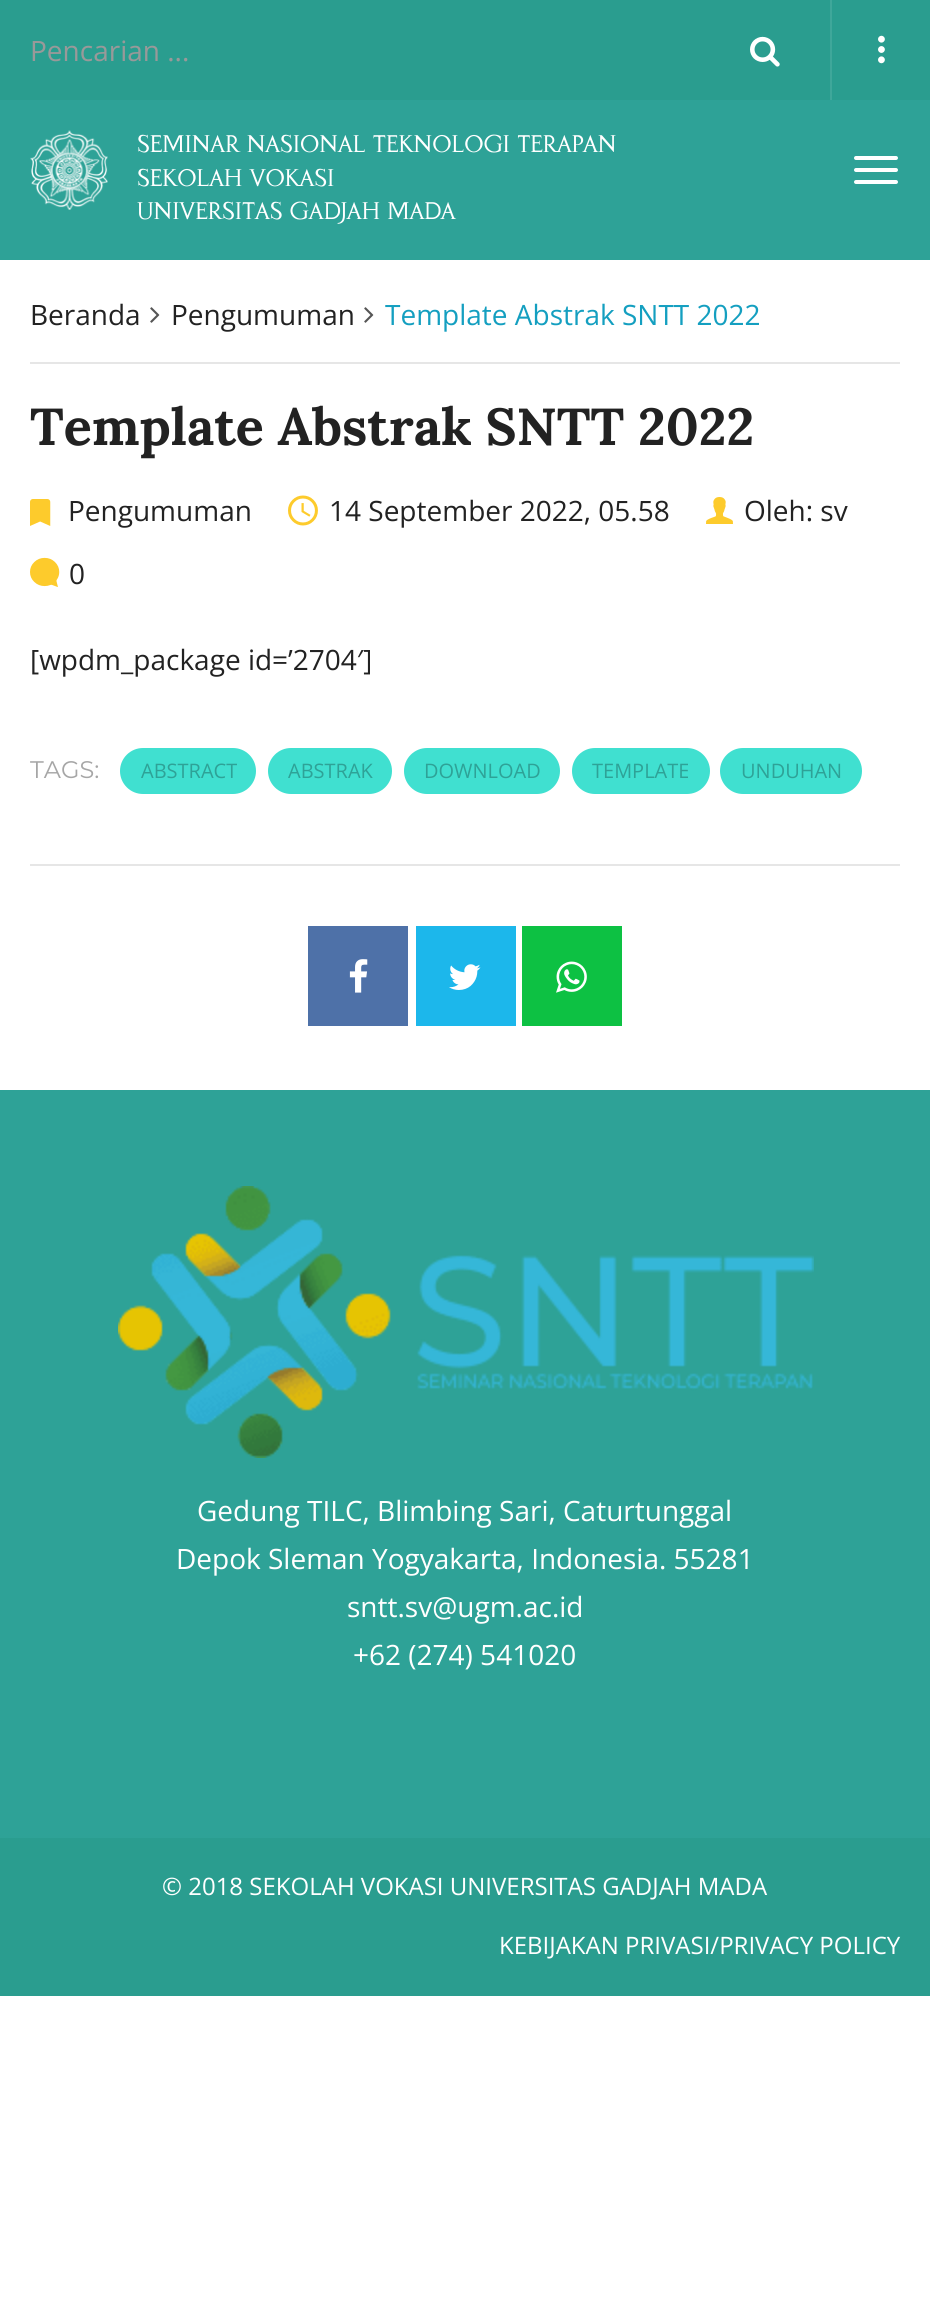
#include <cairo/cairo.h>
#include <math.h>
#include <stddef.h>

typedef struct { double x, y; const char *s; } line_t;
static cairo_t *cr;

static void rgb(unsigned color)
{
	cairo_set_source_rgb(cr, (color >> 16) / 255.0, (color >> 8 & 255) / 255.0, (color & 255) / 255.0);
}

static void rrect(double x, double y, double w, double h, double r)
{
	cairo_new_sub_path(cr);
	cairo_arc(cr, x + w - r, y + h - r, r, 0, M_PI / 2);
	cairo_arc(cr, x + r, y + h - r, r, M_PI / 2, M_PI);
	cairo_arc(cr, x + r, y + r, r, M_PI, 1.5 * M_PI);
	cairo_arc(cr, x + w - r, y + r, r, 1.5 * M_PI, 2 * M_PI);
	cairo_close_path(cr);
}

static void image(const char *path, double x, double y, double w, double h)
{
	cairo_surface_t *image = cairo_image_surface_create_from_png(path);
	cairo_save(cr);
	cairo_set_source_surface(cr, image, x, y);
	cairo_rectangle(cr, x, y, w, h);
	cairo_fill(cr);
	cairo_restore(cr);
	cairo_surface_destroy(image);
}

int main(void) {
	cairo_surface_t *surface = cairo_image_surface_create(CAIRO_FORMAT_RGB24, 930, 2297);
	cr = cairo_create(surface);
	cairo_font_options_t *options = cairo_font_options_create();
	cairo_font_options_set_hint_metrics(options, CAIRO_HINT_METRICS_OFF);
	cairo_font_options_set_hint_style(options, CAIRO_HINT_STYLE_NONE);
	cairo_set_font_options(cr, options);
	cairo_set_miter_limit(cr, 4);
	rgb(0xffffff);
	cairo_paint(cr);
	rgb(0x2ea297);
	cairo_rectangle(cr, 0, 100, 930, 160);
	cairo_fill(cr);
	rgb(0x2a9d8f);
	cairo_rectangle(cr, 0, 0, 930, 100);
	cairo_fill(cr);
	image("img/1.png", 750, 36, 30, 31);
	rgb(0x3fa79a);
	cairo_rectangle(cr, 830, 0, 2, 100);
	cairo_fill(cr);
	image("img/2.png", 878, 35, 7, 29);
	image("img/3.png", 30, 130, 78, 80);
	rgb(0xffffff);
	rrect(854, 156, 44, 4, 2);
	cairo_fill(cr);
	rrect(854, 168, 44, 4, 2);
	cairo_fill(cr);
	rrect(854, 180, 44, 4, 2);
	cairo_fill(cr);
	rgb(0xe6e6e6);
	cairo_rectangle(cr, 30, 362, 870, 2);
	cairo_fill(cr);
	image("img/4.png", 150, 307, 10, 16);
	image("img/4.png", 364, 307, 10, 16);
	image("img/5.png", 30, 499, 21, 27);
	image("img/6.png", 288, 495, 30, 31);
	image("img/7.png", 706, 497, 27, 27);
	image("img/8.png", 30, 557, 30, 30);
	rgb(0x40e0d0);
	rrect(120, 748, 136, 46, 23);
	cairo_fill(cr);
	rrect(268, 748, 124, 46, 23);
	cairo_fill(cr);
	rrect(404, 748, 156, 46, 23);
	cairo_fill(cr);
	rrect(572, 748, 138, 46, 23);
	cairo_fill(cr);
	rrect(720, 748, 142, 46, 23);
	cairo_fill(cr);
	rgb(0xe6e6e6);
	cairo_rectangle(cr, 30, 864, 870, 2);
	cairo_fill(cr);
	rgb(0x4e71a8);
	cairo_rectangle(cr, 308, 926, 100, 100);
	cairo_fill(cr);
	image("img/9.png", 349, 959, 19, 34);
	rgb(0x1cb7eb);
	cairo_rectangle(cr, 416, 926, 100, 100);
	cairo_fill(cr);
	image("img/10.png", 449, 964, 32, 26);
	rgb(0x0dc143);
	cairo_rectangle(cr, 522, 926, 100, 100);
	cairo_fill(cr);
	image("img/11.png", 556, 961, 31, 32);
	rgb(0x2ea297);
	cairo_rectangle(cr, 0, 1090, 930, 748);
	cairo_fill(cr);
	image("img/12.png", 118, 1186, 696, 272);
	rgb(0x2a9d8f);
	cairo_rectangle(cr, 0, 1838, 930, 158);
	cairo_fill(cr);
	cairo_select_font_face(cr, "Open Sans", CAIRO_FONT_SLANT_NORMAL, CAIRO_FONT_WEIGHT_NORMAL);
	cairo_set_font_size(cr, 28);
	rgb(0x999999);
	cairo_move_to(cr, 30, 61);
	cairo_show_text(cr, "Pencarian ...");
	cairo_select_font_face(cr, "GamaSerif", CAIRO_FONT_SLANT_NORMAL, CAIRO_FONT_WEIGHT_NORMAL);
	cairo_set_font_size(cr, 24);
	rgb(0xffffff);
	{
		static const line_t items[] = {
			{137, 152, "SEMINAR NASIONAL TEKNOLOGI TERAPAN"},
			{137, 186, "SEKOLAH VOKASI"},
			{137, 219, "UNIVERSITAS GADJAH MADA"},
		};
		for (size_t i = 0; i < sizeof items / sizeof *items; i++) {
			cairo_move_to(cr, items[i].x, items[i].y);
			cairo_show_text(cr, items[i].s);
		}
	}
	cairo_select_font_face(cr, "Open Sans", CAIRO_FONT_SLANT_NORMAL, CAIRO_FONT_WEIGHT_NORMAL);
	cairo_set_font_size(cr, 28);
	rgb(0x222222);
	cairo_move_to(cr, 30, 325);
	cairo_show_text(cr, "Beranda");
	cairo_move_to(cr, 171, 325);
	cairo_show_text(cr, "Pengumuman");
	rgb(0x149fc0);
	cairo_move_to(cr, 385, 325);
	cairo_show_text(cr, "Template Abstrak SNTT 2022");
	cairo_select_font_face(cr, "Lora", CAIRO_FONT_SLANT_NORMAL, CAIRO_FONT_WEIGHT_BOLD);
	cairo_set_font_size(cr, 52);
	rgb(0x222222);
	cairo_move_to(cr, 30, 445);
	cairo_show_text(cr, "Template Abstrak SNTT 2022");
	cairo_select_font_face(cr, "Open Sans", CAIRO_FONT_SLANT_NORMAL, CAIRO_FONT_WEIGHT_NORMAL);
	cairo_set_font_size(cr, 28);
	{
		static const line_t items[] = {
			{68, 521, "Pengumuman"},
			{329, 521, "14 September 2022, 05.58"},
			{744, 521, "Oleh: sv"},
			{69, 584, "0"},
			{30, 670, "[wpdm_package id=’2704′]"},
		};
		for (size_t i = 0; i < sizeof items / sizeof *items; i++) {
			cairo_move_to(cr, items[i].x, items[i].y);
			cairo_show_text(cr, items[i].s);
		}
	}
	cairo_select_font_face(cr, "Montserrat", CAIRO_FONT_SLANT_NORMAL, CAIRO_FONT_WEIGHT_NORMAL);
	cairo_set_font_size(cr, 24);
	rgb(0xa6a6a6);
	cairo_move_to(cr, 30, 778);
	cairo_show_text(cr, "TAGS:");
	cairo_select_font_face(cr, "Open Sans", CAIRO_FONT_SLANT_NORMAL, CAIRO_FONT_WEIGHT_NORMAL);
	cairo_set_font_size(cr, 20);
	rgb(0x2ea297);
	{
		static const line_t items[] = {
			{141, 778, "ABSTRACT"},
			{288, 778, "ABSTRAK"},
			{424, 778, "DOWNLOAD"},
			{592, 778, "TEMPLATE"},
			{741, 778, "UNDUHAN"},
		};
		for (size_t i = 0; i < sizeof items / sizeof *items; i++) {
			cairo_move_to(cr, items[i].x, items[i].y);
			cairo_show_text(cr, items[i].s);
		}
	}
	cairo_set_font_size(cr, 28);
	rgb(0xffffff);
	{
		static const line_t items[] = {
			{197, 1521, "Gedung TILC, Blimbing Sari, Caturtunggal"},
			{176, 1569, "Depok Sleman Yogyakarta, Indonesia. 55281"},
			{347, 1617, "sntt.sv@ugm.ac.id"},
			{353, 1665, "+62 (274) 541020"},
		};
		for (size_t i = 0; i < sizeof items / sizeof *items; i++) {
			cairo_move_to(cr, items[i].x, items[i].y);
			cairo_show_text(cr, items[i].s);
		}
	}
	cairo_set_font_size(cr, 24);
	cairo_move_to(cr, 162, 1895);
	cairo_show_text(cr, "© 2018 SEKOLAH VOKASI UNIVERSITAS GADJAH MADA");
	cairo_move_to(cr, 499, 1954);
	cairo_show_text(cr, "KEBIJAKAN PRIVASI/PRIVACY POLICY");
	cairo_surface_write_to_png(surface, "page.png");
	cairo_font_options_destroy(options);
	cairo_destroy(cr);
	cairo_surface_destroy(surface);
	return 0;
}
